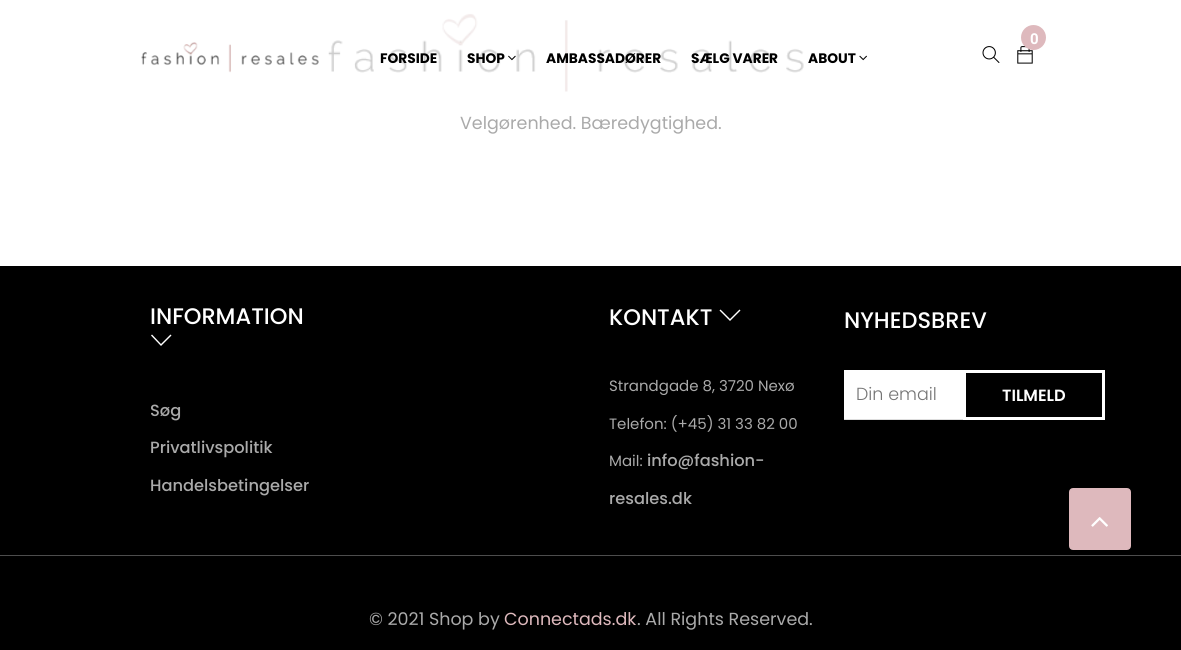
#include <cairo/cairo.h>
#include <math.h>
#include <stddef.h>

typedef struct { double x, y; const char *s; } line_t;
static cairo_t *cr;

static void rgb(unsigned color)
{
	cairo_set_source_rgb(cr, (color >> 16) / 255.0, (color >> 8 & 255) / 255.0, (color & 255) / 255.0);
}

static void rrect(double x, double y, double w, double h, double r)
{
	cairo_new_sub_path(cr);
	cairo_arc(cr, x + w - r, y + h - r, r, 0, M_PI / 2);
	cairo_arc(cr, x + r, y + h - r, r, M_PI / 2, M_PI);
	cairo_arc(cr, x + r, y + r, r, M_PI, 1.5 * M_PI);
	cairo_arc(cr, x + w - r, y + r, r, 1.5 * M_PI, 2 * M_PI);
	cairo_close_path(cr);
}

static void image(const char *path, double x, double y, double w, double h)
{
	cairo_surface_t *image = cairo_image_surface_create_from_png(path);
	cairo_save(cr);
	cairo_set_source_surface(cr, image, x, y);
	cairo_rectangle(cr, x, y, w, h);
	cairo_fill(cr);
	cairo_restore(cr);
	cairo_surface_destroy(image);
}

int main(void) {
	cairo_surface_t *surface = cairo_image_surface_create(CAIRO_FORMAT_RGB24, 1181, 650);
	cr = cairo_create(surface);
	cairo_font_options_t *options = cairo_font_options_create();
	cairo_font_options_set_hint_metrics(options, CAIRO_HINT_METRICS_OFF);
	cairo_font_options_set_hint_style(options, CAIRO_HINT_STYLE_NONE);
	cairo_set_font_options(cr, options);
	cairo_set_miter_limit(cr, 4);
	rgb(0xffffff);
	cairo_paint(cr);
	image("img/6.png", 328, 13, 476, 79);
	cairo_set_source_rgba(cr, 1, 1, 1, 0.8);
	cairo_rectangle(cr, 328, 13, 476, 79);
	cairo_fill(cr);
	image("img/1.png", 1017, 46, 16, 18);
	rgb(0xdeb9bd);
	cairo_arc(cr, 1033.5, 37.5, 12.5, 0, 2 * M_PI);
	cairo_fill(cr);
	image("img/2.png", 982, 46, 18, 17);
	image("img/3.png", 141, 42, 178, 31);
	image("img/4.png", 508, 55, 8, 6);
	image("img/5.png", 859, 55, 8, 6);
	rgb(0x000000);
	cairo_rectangle(cr, 0, 266, 1181, 289);
	cairo_fill(cr);
	rgb(0xffffff);
	cairo_new_path(cr);
	cairo_move_to(cr, 171.5, 335.5);
	cairo_line_to(cr, 161, 346);
	cairo_line_to(cr, 151, 335.5);
	cairo_line_to(cr, 152, 334.5);
	cairo_line_to(cr, 161, 344);
	cairo_line_to(cr, 170.5, 334.5);
	cairo_close_path(cr);
	cairo_fill(cr);
	cairo_new_path(cr);
	cairo_move_to(cr, 740.5, 310.5);
	cairo_line_to(cr, 730, 321);
	cairo_line_to(cr, 719.5, 310.5);
	cairo_line_to(cr, 720.5, 309.5);
	cairo_line_to(cr, 730, 319);
	cairo_line_to(cr, 739.5, 309.5);
	cairo_close_path(cr);
	cairo_fill(cr);
	cairo_rectangle(cr, 844, 370, 119, 49);
	cairo_fill(cr);
	rgb(0xdddddd);
	cairo_rectangle(cr, 844, 419, 119, 1);
	cairo_fill(cr);
	cairo_rectangle(cr, 964.5, 371.5, 139, 47);
	rgb(0xffffff);
	cairo_set_line_width(cr, 3);
	cairo_stroke(cr);
	rgb(0x000000);
	cairo_rectangle(cr, 0, 556, 1181, 94);
	cairo_fill(cr);
	rgb(0x4d4d4d);
	cairo_rectangle(cr, 0, 555, 1181, 1);
	cairo_fill(cr);
	rgb(0xdeb9bd);
	rrect(1070.5, 489.5, 59, 59, 2.5);
	cairo_fill_preserve(cr);
	cairo_stroke(cr);
	image("img/7.png", 1091, 517, 17, 10);
	cairo_select_font_face(cr, "Heebo", CAIRO_FONT_SLANT_NORMAL, CAIRO_FONT_WEIGHT_BOLD);
	cairo_set_font_size(cr, 15);
	rgb(0xffffff);
	cairo_move_to(cr, 1030, 44);
	cairo_show_text(cr, "0");
	cairo_select_font_face(cr, "Poppins", CAIRO_FONT_SLANT_NORMAL, CAIRO_FONT_WEIGHT_BOLD);
	cairo_set_font_size(cr, 13.75);
	rgb(0x000000);
	{
		static const line_t items[] = {
			{380, 63, "FORSIDE"},
			{467, 63, "SHOP"},
			{546, 63, "AMBASSADØRER"},
			{691, 63, "SÆLG VARER"},
			{808, 63, "ABOUT"},
		};
		for (size_t i = 0; i < sizeof items / sizeof *items; i++) {
			cairo_move_to(cr, items[i].x, items[i].y);
			cairo_show_text(cr, items[i].s);
		}
	}
	cairo_select_font_face(cr, "Poppins", CAIRO_FONT_SLANT_NORMAL, CAIRO_FONT_WEIGHT_NORMAL);
	cairo_set_font_size(cr, 17.5);
	rgb(0xaaaaaa);
	cairo_move_to(cr, 460, 129);
	cairo_show_text(cr, "Velgørenhed. Bæredygtighed.");
	cairo_select_font_face(cr, "Poppins Medium", CAIRO_FONT_SLANT_NORMAL, CAIRO_FONT_WEIGHT_NORMAL);
	cairo_set_font_size(cr, 22.5);
	rgb(0xffffff);
	cairo_move_to(cr, 150, 324);
	cairo_show_text(cr, "INFORMATION");
	cairo_set_font_size(cr, 16.25);
	rgb(0xaaaaaa);
	{
		static const line_t items[] = {
			{150, 416, "Søg"},
			{150, 453, "Privatlivspolitik"},
			{150, 491, "Handelsbetingelser"},
		};
		for (size_t i = 0; i < sizeof items / sizeof *items; i++) {
			cairo_move_to(cr, items[i].x, items[i].y);
			cairo_show_text(cr, items[i].s);
		}
	}
	cairo_set_font_size(cr, 22.5);
	rgb(0xffffff);
	cairo_move_to(cr, 609, 325);
	cairo_show_text(cr, "KONTAKT");
	cairo_select_font_face(cr, "Poppins", CAIRO_FONT_SLANT_NORMAL, CAIRO_FONT_WEIGHT_NORMAL);
	cairo_set_font_size(cr, 15);
	rgb(0xaaaaaa);
	{
		static const line_t items[] = {
			{609, 391, "Strandgade 8, 3720 Nexø"},
			{609, 429, "Telefon: (+45) 31 33 82 00"},
			{609, 466, "Mail:"},
		};
		for (size_t i = 0; i < sizeof items / sizeof *items; i++) {
			cairo_move_to(cr, items[i].x, items[i].y);
			cairo_show_text(cr, items[i].s);
		}
	}
	cairo_select_font_face(cr, "Poppins Medium", CAIRO_FONT_SLANT_NORMAL, CAIRO_FONT_WEIGHT_NORMAL);
	cairo_set_font_size(cr, 16.25);
	cairo_move_to(cr, 647, 466);
	cairo_show_text(cr, "info@fashion-");
	cairo_move_to(cr, 609, 504);
	cairo_show_text(cr, "resales.dk");
	cairo_set_font_size(cr, 22.5);
	rgb(0xffffff);
	cairo_move_to(cr, 844, 328);
	cairo_show_text(cr, "NYHEDSBREV");
	cairo_select_font_face(cr, "Poppins Light", CAIRO_FONT_SLANT_NORMAL, CAIRO_FONT_WEIGHT_NORMAL);
	cairo_set_font_size(cr, 17.5);
	rgb(0x757575);
	cairo_move_to(cr, 856, 400);
	cairo_show_text(cr, "Din email");
	cairo_select_font_face(cr, "Poppins SemiBold", CAIRO_FONT_SLANT_NORMAL, CAIRO_FONT_WEIGHT_NORMAL);
	cairo_set_font_size(cr, 16.25);
	rgb(0xffffff);
	cairo_move_to(cr, 1002, 401);
	cairo_show_text(cr, "TILMELD");
	cairo_select_font_face(cr, "Poppins", CAIRO_FONT_SLANT_NORMAL, CAIRO_FONT_WEIGHT_NORMAL);
	cairo_set_font_size(cr, 17.5);
	rgb(0xaaaaaa);
	cairo_move_to(cr, 369, 625);
	cairo_show_text(cr, "© 2021 Shop by");
	rgb(0xdeb9bd);
	cairo_move_to(cr, 504, 625);
	cairo_show_text(cr, "Connectads.dk");
	rgb(0xaaaaaa);
	cairo_move_to(cr, 637, 625);
	cairo_show_text(cr, ". All Rights Reserved.");
	cairo_surface_write_to_png(surface, "page.png");
	cairo_font_options_destroy(options);
	cairo_destroy(cr);
	cairo_surface_destroy(surface);
	return 0;
}
